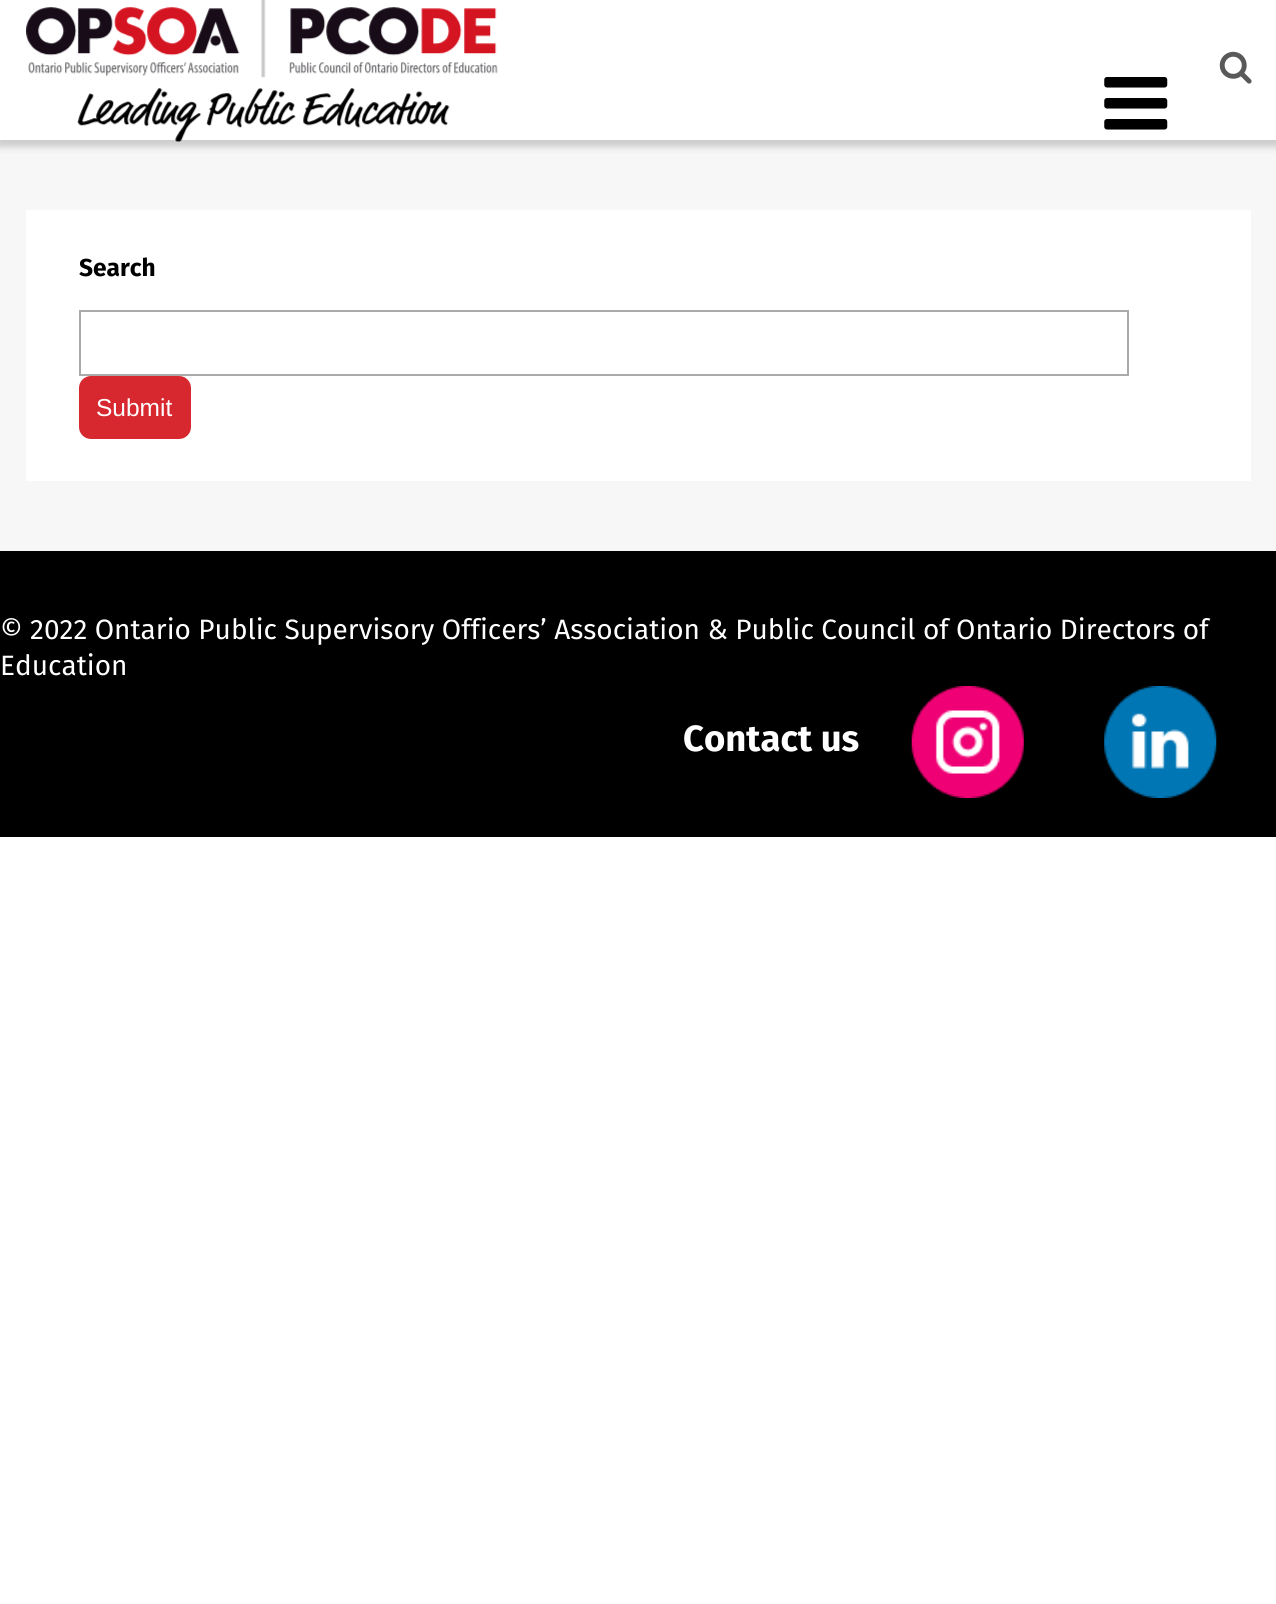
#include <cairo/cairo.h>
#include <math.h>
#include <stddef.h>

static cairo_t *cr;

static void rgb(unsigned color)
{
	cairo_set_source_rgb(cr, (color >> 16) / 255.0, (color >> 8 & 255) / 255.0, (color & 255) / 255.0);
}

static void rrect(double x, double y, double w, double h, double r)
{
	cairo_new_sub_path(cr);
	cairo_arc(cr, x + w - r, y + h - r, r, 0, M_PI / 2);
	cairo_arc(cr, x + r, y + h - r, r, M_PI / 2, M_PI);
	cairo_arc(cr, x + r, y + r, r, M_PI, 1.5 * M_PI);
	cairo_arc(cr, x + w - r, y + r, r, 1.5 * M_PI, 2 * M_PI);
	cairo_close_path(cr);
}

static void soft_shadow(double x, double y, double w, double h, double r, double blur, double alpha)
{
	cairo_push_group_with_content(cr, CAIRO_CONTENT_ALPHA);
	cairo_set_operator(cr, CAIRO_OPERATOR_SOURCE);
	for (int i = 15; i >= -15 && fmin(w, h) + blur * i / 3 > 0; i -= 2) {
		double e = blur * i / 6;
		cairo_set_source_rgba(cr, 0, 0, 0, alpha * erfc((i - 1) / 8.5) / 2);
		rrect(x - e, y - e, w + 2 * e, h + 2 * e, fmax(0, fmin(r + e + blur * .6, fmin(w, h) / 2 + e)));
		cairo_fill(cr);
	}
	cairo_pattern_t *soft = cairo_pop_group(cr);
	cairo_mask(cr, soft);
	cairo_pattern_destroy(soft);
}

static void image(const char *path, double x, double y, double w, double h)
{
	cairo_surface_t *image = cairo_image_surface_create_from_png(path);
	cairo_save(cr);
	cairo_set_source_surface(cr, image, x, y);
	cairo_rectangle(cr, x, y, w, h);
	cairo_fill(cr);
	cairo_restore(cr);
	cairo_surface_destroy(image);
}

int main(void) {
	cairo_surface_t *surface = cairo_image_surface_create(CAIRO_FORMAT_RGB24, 1276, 1604);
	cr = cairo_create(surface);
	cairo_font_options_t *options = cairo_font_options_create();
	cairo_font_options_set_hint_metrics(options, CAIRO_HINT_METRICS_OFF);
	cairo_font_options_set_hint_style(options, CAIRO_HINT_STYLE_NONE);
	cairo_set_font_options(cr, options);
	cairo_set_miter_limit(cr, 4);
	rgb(0xffffff);
	cairo_paint(cr);
	rgb(0xf7f7f7);
	cairo_rectangle(cr, 0, 140, 1276, 411);
	cairo_fill(cr);
	cairo_save(cr);
	cairo_rectangle(cr, 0, 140, 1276, 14);
	cairo_clip(cr);
	rgb(0xcccccc);
	soft_shadow(-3, -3, 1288, 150, 0, 3.5, 1);
	cairo_restore(cr);
	image("img/1.png", 26, 0, 472, 142);
	image("img/2.png", 1219, 51, 33, 33);
	image("img/3.png", 1104, 77, 64, 53);
	rgb(0xffffff);
	cairo_rectangle(cr, 26, 210, 1225, 271);
	cairo_fill(cr);
	cairo_rectangle(cr, 80, 311, 1048, 64);
	rgb(0xaaaaaa);
	cairo_stroke(cr);
	rgb(0xd7282f);
	rrect(79, 376, 112, 63, 12);
	cairo_fill(cr);
	rgb(0x000000);
	cairo_rectangle(cr, 0, 551, 1276, 286);
	cairo_fill(cr);
	image("img/4.png", 911, 686, 113, 112);
	image("img/5.png", 1104, 686, 113, 112);
	cairo_select_font_face(cr, "Fira Sans", CAIRO_FONT_SLANT_NORMAL, CAIRO_FONT_WEIGHT_BOLD);
	cairo_set_font_size(cr, 24.5);
	cairo_move_to(cr, 79, 276);
	cairo_show_text(cr, "Search");
	cairo_select_font_face(cr, "Liberation Sans", CAIRO_FONT_SLANT_NORMAL, CAIRO_FONT_WEIGHT_NORMAL);
	rgb(0xffffff);
	cairo_move_to(cr, 96, 416);
	cairo_show_text(cr, "Submit");
	cairo_select_font_face(cr, "Fira Sans", CAIRO_FONT_SLANT_NORMAL, CAIRO_FONT_WEIGHT_NORMAL);
	cairo_set_font_size(cr, 28);
	cairo_move_to(cr, 0, 639);
	cairo_show_text(cr, "© 2022 Ontario Public Supervisory Officers’ Association & Public Council of Ontario Directors of");
	cairo_move_to(cr, 0, 675);
	cairo_show_text(cr, "Education");
	cairo_select_font_face(cr, "Fira Sans", CAIRO_FONT_SLANT_NORMAL, CAIRO_FONT_WEIGHT_BOLD);
	cairo_set_font_size(cr, 36.5);
	cairo_move_to(cr, 683, 751);
	cairo_show_text(cr, "Contact us");
	cairo_surface_write_to_png(surface, "page.png");
	cairo_font_options_destroy(options);
	cairo_destroy(cr);
	cairo_surface_destroy(surface);
	return 0;
}
